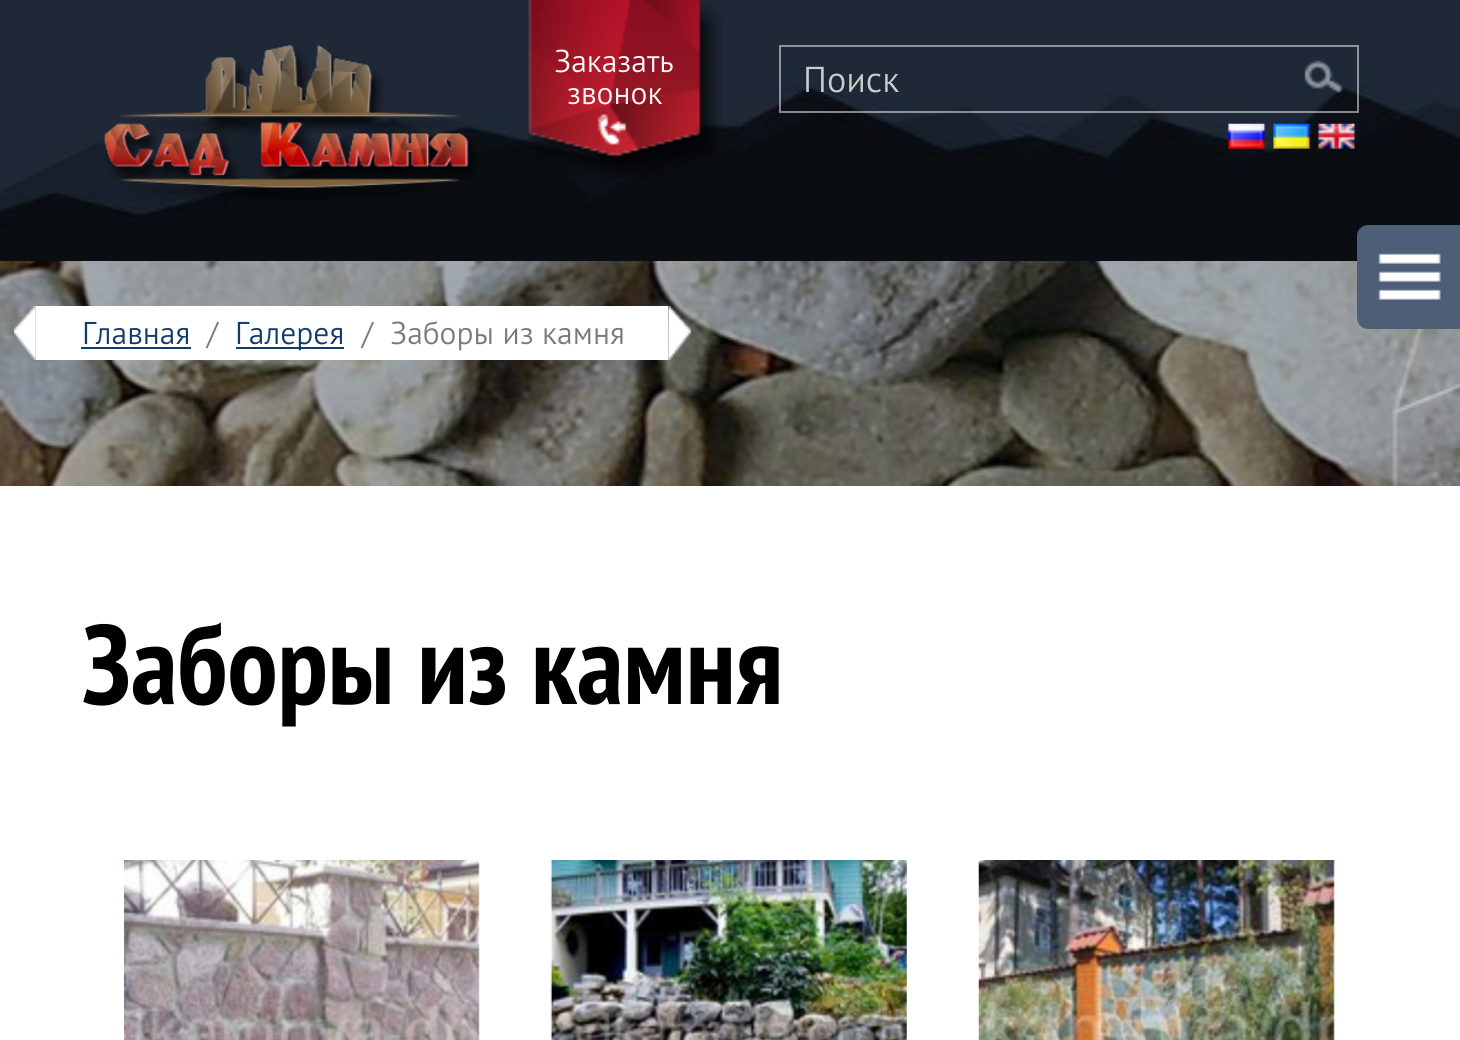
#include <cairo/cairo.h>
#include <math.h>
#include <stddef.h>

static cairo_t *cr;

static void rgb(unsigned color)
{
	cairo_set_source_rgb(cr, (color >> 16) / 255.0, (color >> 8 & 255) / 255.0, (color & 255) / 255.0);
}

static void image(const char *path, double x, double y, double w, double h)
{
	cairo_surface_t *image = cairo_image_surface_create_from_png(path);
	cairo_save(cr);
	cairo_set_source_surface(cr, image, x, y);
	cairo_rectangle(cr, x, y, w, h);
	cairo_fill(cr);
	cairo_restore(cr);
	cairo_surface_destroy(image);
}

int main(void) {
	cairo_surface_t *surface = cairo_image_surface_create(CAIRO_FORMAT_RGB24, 1460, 1040);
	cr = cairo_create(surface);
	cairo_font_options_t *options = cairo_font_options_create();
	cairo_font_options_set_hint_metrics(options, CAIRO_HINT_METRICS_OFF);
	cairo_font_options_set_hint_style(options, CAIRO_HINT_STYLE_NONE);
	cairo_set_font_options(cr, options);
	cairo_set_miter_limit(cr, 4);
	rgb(0xffffff);
	cairo_paint(cr);
	image("img/1.png", 0, 0, 1460, 261);
	image("img/2.png", 104, 45, 372, 155);
	image("img/3.png", 528, 0, 194, 178);
	cairo_rectangle(cr, 780, 46, 578, 66);
	cairo_set_source_rgba(cr, 1, 1, 1, 0.5);
	cairo_stroke(cr);
	image("img/4.png", 1304, 60, 40, 33);
	image("img/5.png", 1228, 123, 38, 26);
	image("img/6.png", 1273, 123, 38, 26);
	image("img/7.png", 1318, 123, 38, 26);
	image("img/9.png", 0, 261, 1460, 225);
	rgb(0x4f5e77);
	cairo_new_path(cr);
	cairo_move_to(cr, 1368, 225);
	cairo_line_to(cr, 1460, 225);
	cairo_line_to(cr, 1460, 329);
	cairo_line_to(cr, 1368, 329);
	cairo_curve_to(cr, 1362, 329, 1357, 324, 1357, 318);
	cairo_line_to(cr, 1357, 236);
	cairo_curve_to(cr, 1357, 230, 1362, 225, 1368, 225);
	cairo_close_path(cr);
	cairo_fill(cr);
	image("img/8.png", 1378, 253, 63, 47);
	rgb(0xffffff);
	cairo_rectangle(cr, 36, 306, 632, 54);
	cairo_fill(cr);
	image("img/10.png", 14, 306, 22, 54);
	rgb(0x123a6b);
	cairo_rectangle(cr, 81, 347, 110, 2);
	cairo_fill(cr);
	cairo_rectangle(cr, 236, 347, 108, 2);
	cairo_fill(cr);
	image("img/11.png", 668, 306, 24, 54);
	image("img/12.png", 124, 860, 356, 180);
	image("img/13.png", 550, 860, 357, 180);
	image("img/14.png", 978, 860, 357, 180);
	cairo_select_font_face(cr, "PT Sans Light", CAIRO_FONT_SLANT_NORMAL, CAIRO_FONT_WEIGHT_NORMAL);
	cairo_set_font_size(cr, 31.5);
	rgb(0xffffff);
	cairo_move_to(cr, 554, 72);
	cairo_show_text(cr, "Заказать");
	cairo_move_to(cr, 567, 104);
	cairo_show_text(cr, "звонок");
	cairo_set_font_size(cr, 36);
	rgb(0xcccccc);
	cairo_move_to(cr, 803, 92);
	cairo_show_text(cr, "Поиск");
	cairo_set_font_size(cr, 31.5);
	rgb(0x123a6b);
	cairo_move_to(cr, 82, 344);
	cairo_show_text(cr, "Главная");
	rgb(0x78797a);
	cairo_move_to(cr, 207, 344);
	cairo_show_text(cr, "/");
	rgb(0x123a6b);
	cairo_move_to(cr, 235, 344);
	cairo_show_text(cr, "Галерея");
	rgb(0x78797a);
	cairo_move_to(cr, 362, 344);
	cairo_show_text(cr, "/");
	cairo_move_to(cr, 390, 344);
	cairo_show_text(cr, "Заборы из камня");
	cairo_select_font_face(cr, "PT Sans Narrow", CAIRO_FONT_SLANT_NORMAL, CAIRO_FONT_WEIGHT_BOLD);
	cairo_set_font_size(cr, 112.5);
	rgb(0x000000);
	cairo_move_to(cr, 82, 704);
	cairo_show_text(cr, "Заборы из камня");
	cairo_surface_write_to_png(surface, "page.png");
	cairo_font_options_destroy(options);
	cairo_destroy(cr);
	cairo_surface_destroy(surface);
	return 0;
}
